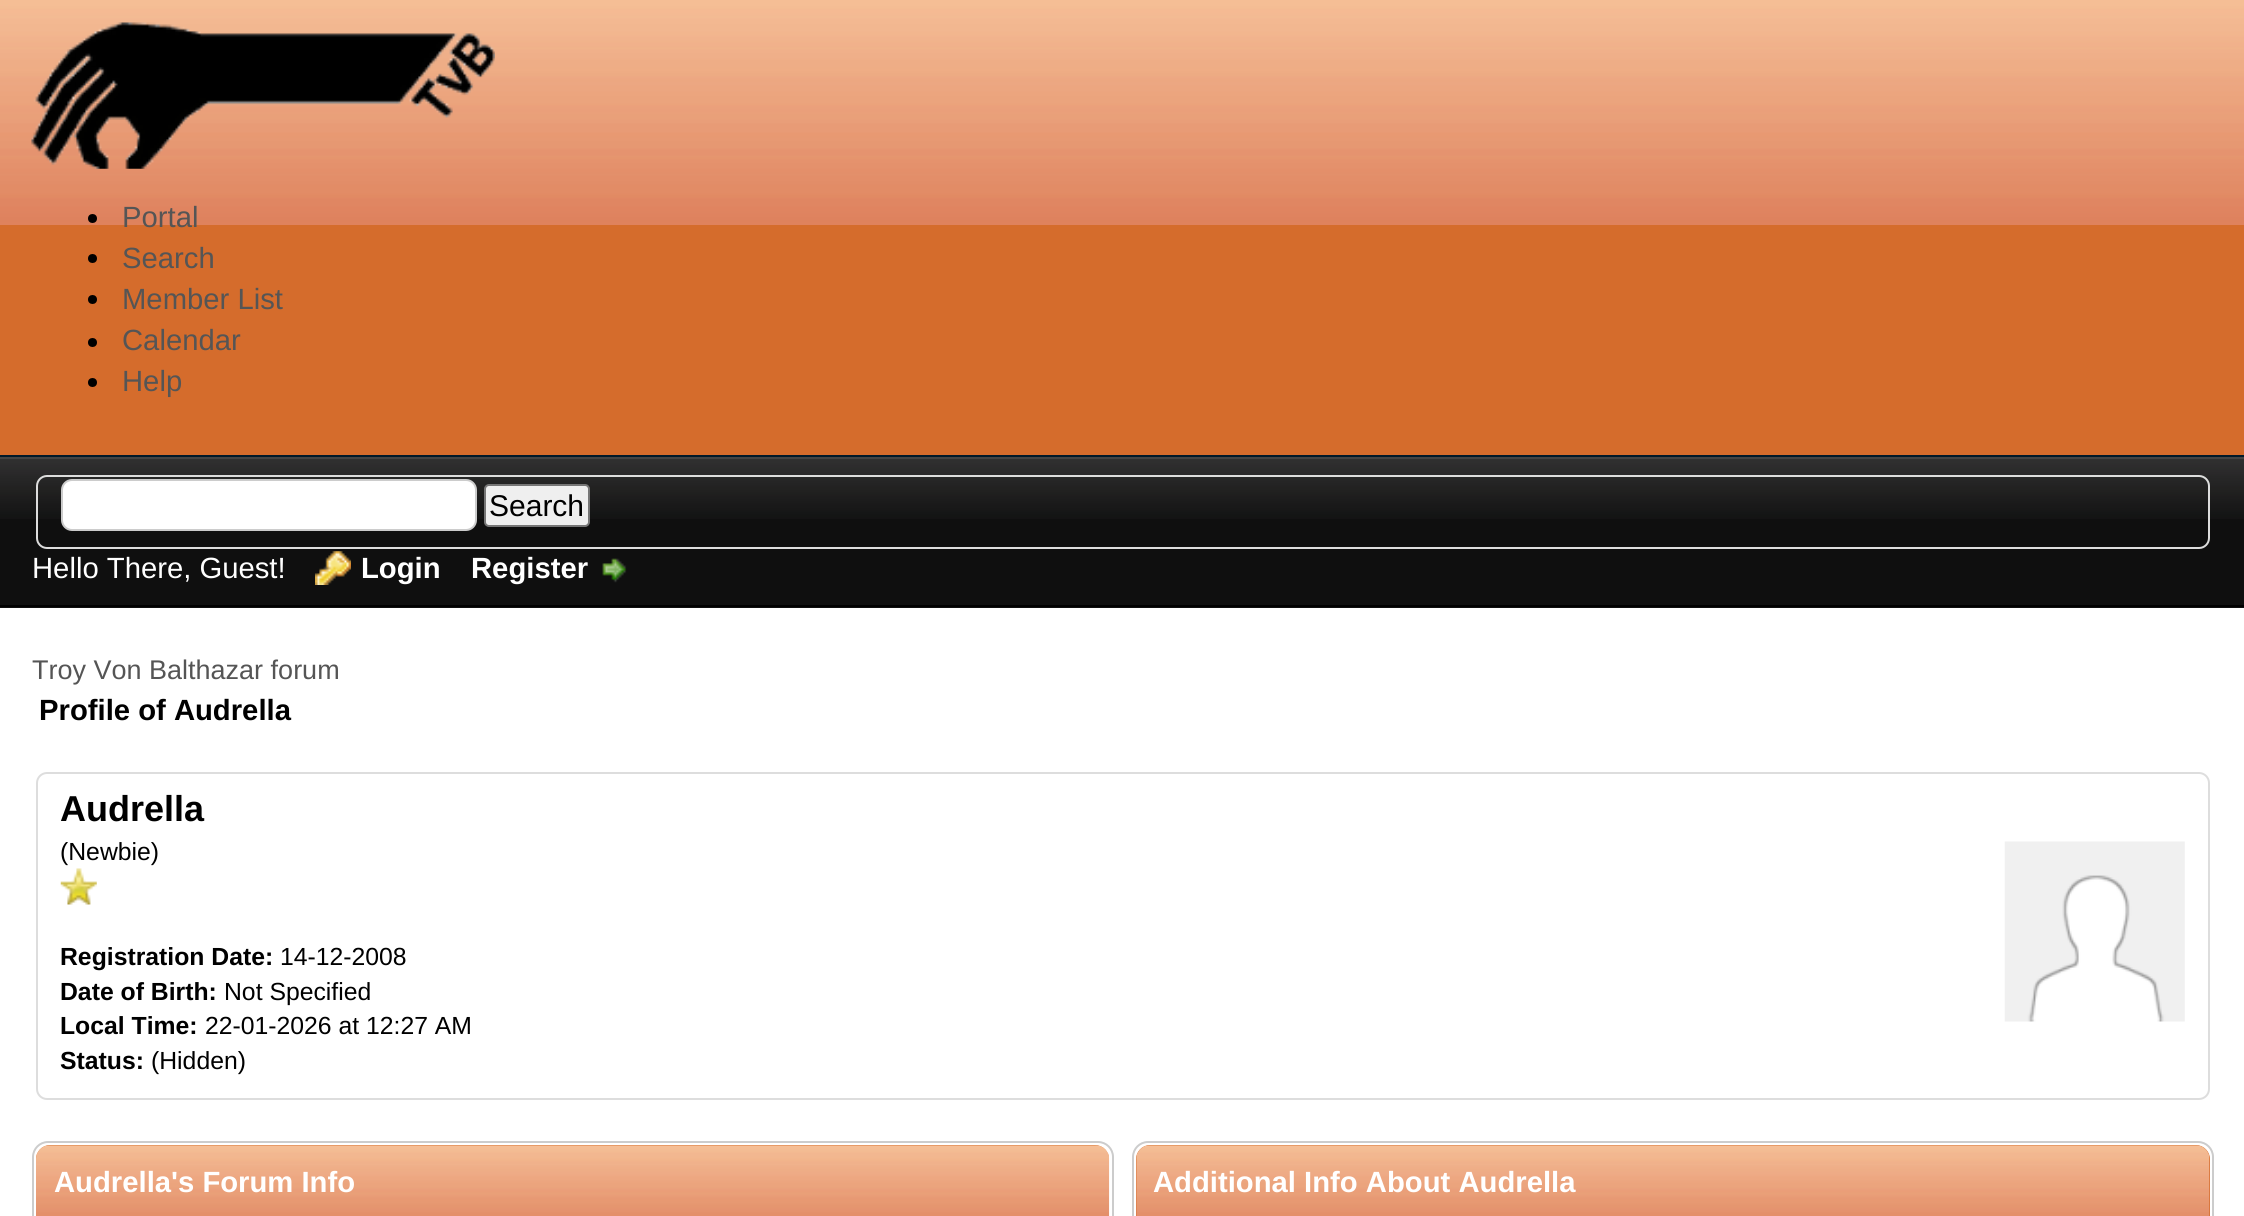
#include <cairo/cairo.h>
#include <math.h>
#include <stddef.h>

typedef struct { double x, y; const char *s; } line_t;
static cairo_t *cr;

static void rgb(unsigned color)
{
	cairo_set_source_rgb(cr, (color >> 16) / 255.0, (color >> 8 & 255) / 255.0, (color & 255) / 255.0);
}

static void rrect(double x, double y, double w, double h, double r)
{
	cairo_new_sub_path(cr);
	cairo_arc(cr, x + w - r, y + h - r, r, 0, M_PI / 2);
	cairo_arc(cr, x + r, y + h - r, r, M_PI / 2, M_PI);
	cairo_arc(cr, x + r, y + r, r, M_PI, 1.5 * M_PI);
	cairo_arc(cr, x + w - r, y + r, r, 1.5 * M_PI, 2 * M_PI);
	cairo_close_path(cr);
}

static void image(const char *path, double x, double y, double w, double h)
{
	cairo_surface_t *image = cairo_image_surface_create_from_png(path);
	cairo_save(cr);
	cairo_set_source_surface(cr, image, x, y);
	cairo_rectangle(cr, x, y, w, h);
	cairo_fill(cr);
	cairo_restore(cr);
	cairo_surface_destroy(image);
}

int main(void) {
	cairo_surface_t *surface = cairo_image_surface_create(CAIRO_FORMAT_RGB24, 2244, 1216);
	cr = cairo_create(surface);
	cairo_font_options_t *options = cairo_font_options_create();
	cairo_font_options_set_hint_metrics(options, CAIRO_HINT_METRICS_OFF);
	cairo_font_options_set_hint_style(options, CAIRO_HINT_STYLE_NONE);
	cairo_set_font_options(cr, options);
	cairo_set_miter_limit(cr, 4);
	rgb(0xd56c2c);
	cairo_paint(cr);
	image("img/1.png", 0, 0, 2244, 225);
	rgb(0x011929);
	cairo_rectangle(cr, 0, 455, 2244, 2);
	cairo_fill(cr);
	image("img/2.png", 31, 22, 464, 147);
	rgb(0x000000);
	cairo_arc(cr, 92.5, 218.5, 4.5, 0, 2 * M_PI);
	cairo_fill(cr);
	cairo_arc(cr, 92.5, 258.5, 4.5, 0, 2 * M_PI);
	cairo_fill(cr);
	cairo_arc(cr, 92.5, 299.5, 4.5, 0, 2 * M_PI);
	cairo_fill(cr);
	cairo_arc(cr, 92.5, 342.5, 4.5, 0, 2 * M_PI);
	cairo_fill(cr);
	cairo_arc(cr, 92.5, 382.5, 4.5, 0, 2 * M_PI);
	cairo_fill(cr);
	rgb(0x0f0f0f);
	cairo_rectangle(cr, 0, 519, 2244, 89);
	cairo_fill(cr);
	image("img/3.png", 0, 459, 2244, 60);
	rgb(0x444444);
	cairo_rectangle(cr, 0, 457, 2244, 2);
	cairo_fill(cr);
	rgb(0x000000);
	cairo_rectangle(cr, 0, 605, 2244, 2);
	cairo_fill(cr);
	rrect(37, 476, 2172, 72, 10);
	rgb(0xdddddd);
	cairo_stroke(cr);
	rgb(0xffffff);
	rrect(62, 480, 414, 50, 10);
	cairo_fill_preserve(cr);
	rgb(0xcccccc);
	cairo_stroke(cr);
	rgb(0xefefef);
	rrect(485, 485, 104, 41, 4);
	cairo_fill_preserve(cr);
	rgb(0x767676);
	cairo_stroke(cr);
	image("img/4.png", 315, 551, 36, 34);
	image("img/5.png", 602, 558, 25, 25);
	rgb(0xffffff);
	cairo_rectangle(cr, 0, 608, 2244, 608);
	cairo_fill(cr);
	rrect(37, 773, 2172, 326, 10);
	rgb(0xdddddd);
	cairo_stroke(cr);
	image("img/6.png", 60, 868, 37, 37);
	image("img/7.png", 2004, 841, 181, 181);
	rrect(33, 1142, 1080, 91, 15);
	rgb(0xcccccc);
	cairo_stroke(cr);
	rgb(0xd56c2c);
	cairo_new_path(cr);
	cairo_move_to(cr, 50, 1145);
	cairo_line_to(cr, 1095, 1145);
	cairo_curve_to(cr, 1102.5, 1145, 1109, 1151.5, 1109, 1159);
	cairo_line_to(cr, 1109, 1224);
	cairo_line_to(cr, 36, 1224);
	cairo_line_to(cr, 36, 1159);
	cairo_curve_to(cr, 36, 1151.5, 42.5, 1145, 50, 1145);
	cairo_close_path(cr);
	cairo_fill(cr);
	image("img/8.png", 36, 1145, 1074, 71);
	rrect(1133, 1142, 1080, 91, 15);
	rgb(0xcccccc);
	cairo_stroke(cr);
	rgb(0xd56c2c);
	cairo_new_path(cr);
	cairo_move_to(cr, 1150, 1145);
	cairo_line_to(cr, 2196, 1145);
	cairo_curve_to(cr, 2203.5, 1145, 2210, 1151.5, 2210, 1159);
	cairo_line_to(cr, 2210, 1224);
	cairo_line_to(cr, 1136, 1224);
	cairo_line_to(cr, 1136, 1159);
	cairo_curve_to(cr, 1136, 1151.5, 1142.5, 1145, 1150, 1145);
	cairo_close_path(cr);
	cairo_fill(cr);
	image("img/9.png", 1136, 1145, 1074, 71);
	cairo_select_font_face(cr, "Liberation Sans", CAIRO_FONT_SLANT_NORMAL, CAIRO_FONT_WEIGHT_NORMAL);
	cairo_set_font_size(cr, 29.25);
	rgb(0x555555);
	{
		static const line_t items[] = {
			{122, 227, "Portal"},
			{122, 268, "Search"},
			{122, 309, "Member List"},
			{122, 350, "Calendar"},
			{122, 391, "Help"},
		};
		for (size_t i = 0; i < sizeof items / sizeof *items; i++) {
			cairo_move_to(cr, items[i].x, items[i].y);
			cairo_show_text(cr, items[i].s);
		}
	}
	cairo_set_font_size(cr, 30);
	rgb(0x000000);
	cairo_move_to(cr, 489, 516);
	cairo_show_text(cr, "Search");
	cairo_set_font_size(cr, 29.25);
	rgb(0xffffff);
	cairo_move_to(cr, 32, 578);
	cairo_show_text(cr, "Hello There, Guest!");
	cairo_select_font_face(cr, "Liberation Sans", CAIRO_FONT_SLANT_NORMAL, CAIRO_FONT_WEIGHT_BOLD);
	cairo_move_to(cr, 361, 578);
	cairo_show_text(cr, "Login");
	cairo_move_to(cr, 471, 578);
	cairo_show_text(cr, "Register");
	cairo_select_font_face(cr, "Liberation Sans", CAIRO_FONT_SLANT_NORMAL, CAIRO_FONT_WEIGHT_NORMAL);
	cairo_set_font_size(cr, 27);
	rgb(0x555555);
	cairo_move_to(cr, 32, 679);
	cairo_show_text(cr, "Troy Von Balthazar forum");
	cairo_select_font_face(cr, "Liberation Sans", CAIRO_FONT_SLANT_NORMAL, CAIRO_FONT_WEIGHT_BOLD);
	cairo_set_font_size(cr, 29.25);
	rgb(0x000000);
	cairo_move_to(cr, 39, 720);
	cairo_show_text(cr, "Profile of Audrella");
	cairo_set_font_size(cr, 36);
	cairo_move_to(cr, 60, 821);
	cairo_show_text(cr, "Audrella");
	cairo_select_font_face(cr, "Liberation Sans", CAIRO_FONT_SLANT_NORMAL, CAIRO_FONT_WEIGHT_NORMAL);
	cairo_set_font_size(cr, 24.75);
	cairo_move_to(cr, 60, 860);
	cairo_show_text(cr, "(Newbie)");
	cairo_select_font_face(cr, "Liberation Sans", CAIRO_FONT_SLANT_NORMAL, CAIRO_FONT_WEIGHT_BOLD);
	cairo_move_to(cr, 60, 965);
	cairo_show_text(cr, "Registration Date:");
	cairo_select_font_face(cr, "Liberation Sans", CAIRO_FONT_SLANT_NORMAL, CAIRO_FONT_WEIGHT_NORMAL);
	cairo_move_to(cr, 280, 965);
	cairo_show_text(cr, "14-12-2008");
	cairo_select_font_face(cr, "Liberation Sans", CAIRO_FONT_SLANT_NORMAL, CAIRO_FONT_WEIGHT_BOLD);
	cairo_move_to(cr, 60, 1000);
	cairo_show_text(cr, "Date of Birth:");
	cairo_select_font_face(cr, "Liberation Sans", CAIRO_FONT_SLANT_NORMAL, CAIRO_FONT_WEIGHT_NORMAL);
	cairo_move_to(cr, 224, 1000);
	cairo_show_text(cr, "Not Specified");
	cairo_select_font_face(cr, "Liberation Sans", CAIRO_FONT_SLANT_NORMAL, CAIRO_FONT_WEIGHT_BOLD);
	cairo_move_to(cr, 60, 1034);
	cairo_show_text(cr, "Local Time:");
	cairo_select_font_face(cr, "Liberation Sans", CAIRO_FONT_SLANT_NORMAL, CAIRO_FONT_WEIGHT_NORMAL);
	cairo_move_to(cr, 205, 1034);
	cairo_show_text(cr, "22-01-2026 at 12:27 AM");
	cairo_select_font_face(cr, "Liberation Sans", CAIRO_FONT_SLANT_NORMAL, CAIRO_FONT_WEIGHT_BOLD);
	cairo_move_to(cr, 60, 1069);
	cairo_show_text(cr, "Status:");
	cairo_select_font_face(cr, "Liberation Sans", CAIRO_FONT_SLANT_NORMAL, CAIRO_FONT_WEIGHT_NORMAL);
	cairo_move_to(cr, 151, 1069);
	cairo_show_text(cr, "(Hidden)");
	cairo_select_font_face(cr, "Liberation Sans", CAIRO_FONT_SLANT_NORMAL, CAIRO_FONT_WEIGHT_BOLD);
	cairo_set_font_size(cr, 29.25);
	rgb(0xffffff);
	cairo_move_to(cr, 54, 1192);
	cairo_show_text(cr, "Audrella's Forum Info");
	cairo_move_to(cr, 1153, 1192);
	cairo_show_text(cr, "Additional Info About Audrella");
	cairo_surface_write_to_png(surface, "page.png");
	cairo_font_options_destroy(options);
	cairo_destroy(cr);
	cairo_surface_destroy(surface);
	return 0;
}
